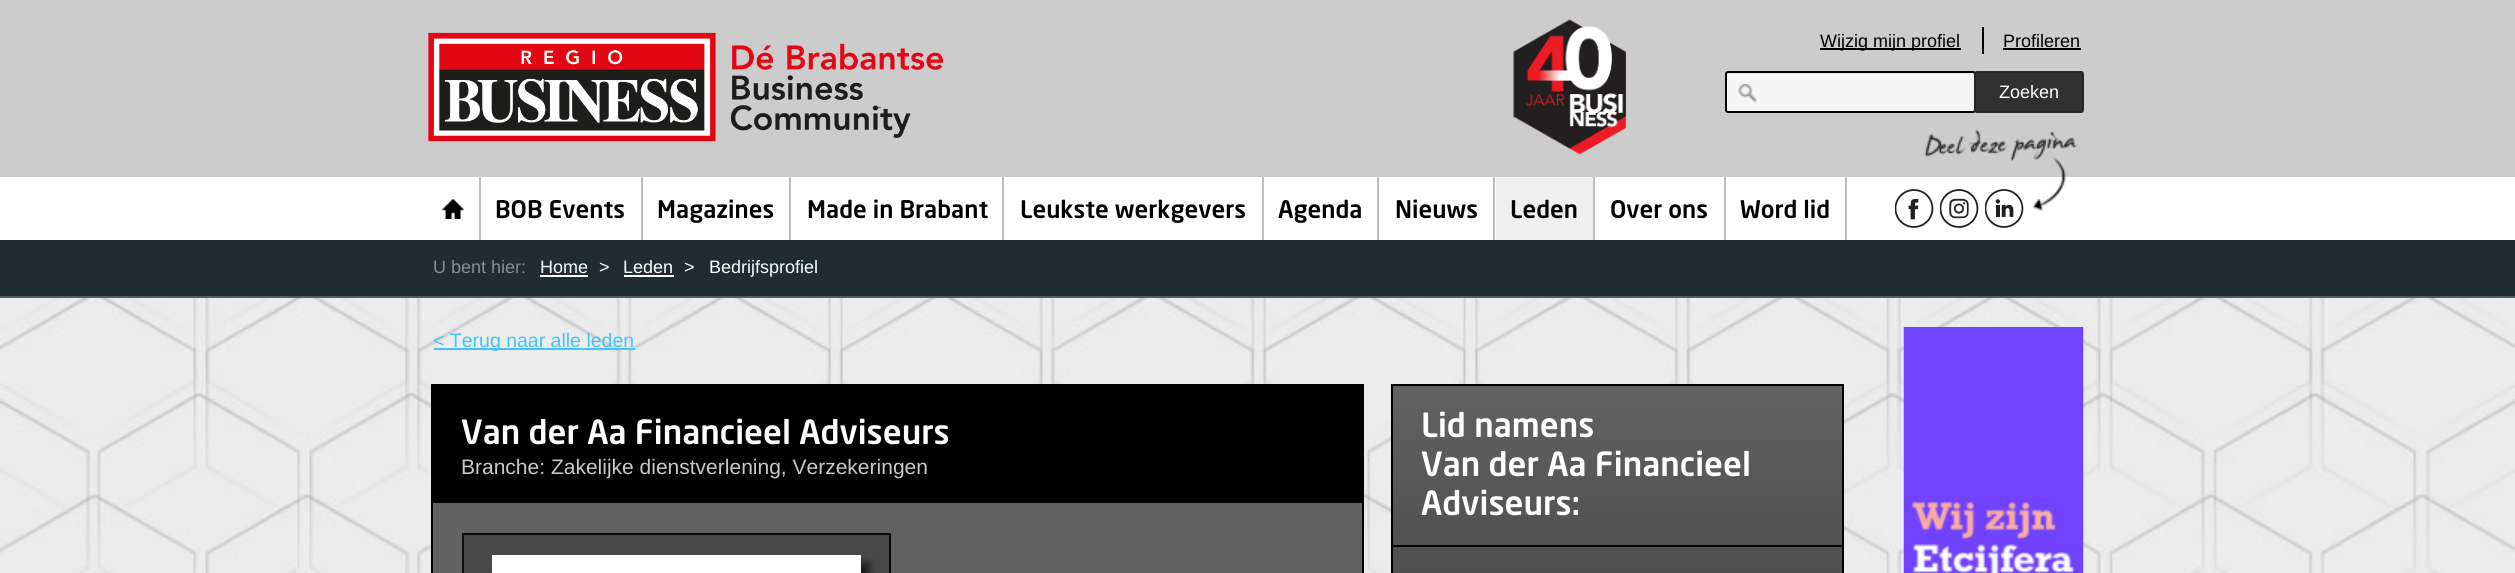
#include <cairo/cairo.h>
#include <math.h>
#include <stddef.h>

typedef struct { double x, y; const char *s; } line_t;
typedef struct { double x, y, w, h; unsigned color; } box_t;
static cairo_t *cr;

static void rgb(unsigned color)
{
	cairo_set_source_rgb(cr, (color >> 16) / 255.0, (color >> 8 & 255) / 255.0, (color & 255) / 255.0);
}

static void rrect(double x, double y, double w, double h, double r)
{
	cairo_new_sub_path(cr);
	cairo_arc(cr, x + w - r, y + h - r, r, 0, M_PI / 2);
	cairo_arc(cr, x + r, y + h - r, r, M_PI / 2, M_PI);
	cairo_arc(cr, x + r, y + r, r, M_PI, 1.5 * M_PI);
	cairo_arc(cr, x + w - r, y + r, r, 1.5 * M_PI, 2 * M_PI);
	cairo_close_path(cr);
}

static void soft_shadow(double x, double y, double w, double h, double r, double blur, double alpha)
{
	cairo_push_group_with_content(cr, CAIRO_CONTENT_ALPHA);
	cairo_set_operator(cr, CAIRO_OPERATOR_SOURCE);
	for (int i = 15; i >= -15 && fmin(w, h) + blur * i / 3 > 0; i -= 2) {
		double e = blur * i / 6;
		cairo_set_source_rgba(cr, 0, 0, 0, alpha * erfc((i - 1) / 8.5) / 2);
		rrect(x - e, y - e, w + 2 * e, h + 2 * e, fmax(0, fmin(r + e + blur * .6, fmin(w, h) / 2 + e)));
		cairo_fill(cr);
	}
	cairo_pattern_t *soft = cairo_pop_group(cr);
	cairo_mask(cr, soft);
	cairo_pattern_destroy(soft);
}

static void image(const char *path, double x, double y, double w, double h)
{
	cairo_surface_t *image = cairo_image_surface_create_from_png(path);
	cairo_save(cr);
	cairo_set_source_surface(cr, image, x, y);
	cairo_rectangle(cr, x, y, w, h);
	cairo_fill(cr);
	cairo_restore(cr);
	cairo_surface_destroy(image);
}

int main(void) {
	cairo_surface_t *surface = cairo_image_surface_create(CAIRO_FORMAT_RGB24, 2515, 573);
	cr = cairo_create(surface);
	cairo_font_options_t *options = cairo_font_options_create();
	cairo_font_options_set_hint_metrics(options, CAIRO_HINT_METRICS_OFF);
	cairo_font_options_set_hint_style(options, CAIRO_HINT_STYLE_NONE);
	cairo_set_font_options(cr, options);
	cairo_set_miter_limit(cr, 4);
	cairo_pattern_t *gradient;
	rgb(0xffffff);
	cairo_paint(cr);
	rgb(0xcccccc);
	cairo_rectangle(cr, 0, 0, 2515, 177);
	cairo_fill(cr);
	image("img/1.png", 428, 32, 516, 110);
	image("img/2.png", 1513, 19, 113, 136);
	{
		static const box_t items[] = {
			{1820, 48, 141, 2, 0x000000},
			{1982, 27, 2, 27, 0x000000},
			{2003, 48, 78, 2, 0x000000},
		};
		for (size_t i = 0; i < sizeof items / sizeof *items; i++) {
			rgb(items[i].color);
			cairo_rectangle(cr, items[i].x, items[i].y, items[i].w, items[i].h);
			cairo_fill(cr);
		}
	}
	rgb(0xf5f5f5);
	rrect(1725, 71, 251, 42, 3);
	cairo_fill(cr);
	image("img/3.png", 1738, 84, 19, 18);
	rgb(0xe1e1e1);
	cairo_new_path(cr);
	cairo_move_to(cr, 1728, 74);
	cairo_line_to(cr, 1972, 74);
	cairo_curve_to(cr, 1973, 74, 1974, 74, 1974, 75);
	cairo_curve_to(cr, 1974, 74, 1974, 73, 1973, 72);
	cairo_line_to(cr, 1728, 72);
	cairo_line_to(cr, 1727, 74);
	cairo_close_path(cr);
	cairo_fill(cr);
	rrect(1726, 72, 249, 40, 2);
	rgb(0x000000);
	cairo_stroke(cr);
	rgb(0x303030);
	rrect(1975, 72, 108, 40, 2);
	cairo_fill_preserve(cr);
	rgb(0x212629);
	cairo_stroke(cr);
	image("img/4.png", 442, 199, 22, 20);
	{
		static const box_t items[] = {
			{479, 177, 2, 63, 0xbfbfbf},
			{641, 177, 2, 63, 0xbfbfbf},
			{789, 177, 2, 63, 0xbfbfbf},
			{1002, 177, 2, 63, 0xbfbfbf},
			{1262, 177, 2, 63, 0xbfbfbf},
			{1377, 177, 2, 63, 0xbfbfbf},
			{1493, 177, 2, 63, 0xbfbfbf},
			{1496, 177, 97, 63, 0xefefef},
			{1593, 177, 2, 63, 0xbfbfbf},
			{1724, 177, 2, 63, 0xbfbfbf},
			{1845, 177, 2, 63, 0xbfbfbf},
		};
		for (size_t i = 0; i < sizeof items / sizeof *items; i++) {
			rgb(items[i].color);
			cairo_rectangle(cr, items[i].x, items[i].y, items[i].w, items[i].h);
			cairo_fill(cr);
		}
	}
	image("img/5.png", 1924, 130, 154, 82);
	image("img/6.png", 1895, 189, 39, 39);
	image("img/7.png", 1940, 189, 39, 39);
	image("img/8.png", 1985, 189, 39, 39);
	{
		static const box_t items[] = {
			{0, 240, 2515, 56, 0x1f2c30},
			{0, 296, 2515, 2, 0x535c60},
			{540, 275, 48, 2, 0xffffff},
			{624, 275, 50, 2, 0xffffff},
		};
		for (size_t i = 0; i < sizeof items / sizeof *items; i++) {
			rgb(items[i].color);
			cairo_rectangle(cr, items[i].x, items[i].y, items[i].w, items[i].h);
			cairo_fill(cr);
		}
	}
	image("img/9.png", 0, 298, 2515, 275);
	rgb(0x42c5f6);
	cairo_rectangle(cr, 434, 348, 201, 2);
	cairo_fill(cr);
	rgb(0x626262);
	cairo_rectangle(cr, 433, 503, 929, 70);
	cairo_fill(cr);
	cairo_rectangle(cr, 432, 385, 931, 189);
	rgb(0x000000);
	cairo_stroke(cr);
	cairo_rectangle(cr, 433, 386, 929, 117);
	cairo_fill(cr);
	rgb(0x484848);
	cairo_rectangle(cr, 463, 534, 427, 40);
	cairo_fill_preserve(cr);
	rgb(0x0b0b0b);
	cairo_stroke(cr);
	rgb(0x1a1918);
	soft_shadow(500, 563, 369, 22, 0, 4, 1);
	rgb(0xffffff);
	cairo_rectangle(cr, 492, 555, 369, 18);
	cairo_fill(cr);
	gradient = cairo_pattern_create_linear(1617, 386, 1617, 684);
	cairo_pattern_add_color_stop_rgba(gradient, 0, 0.384, 0.384, 0.384, 1);
	cairo_pattern_add_color_stop_rgba(gradient, 0.9, 0.275, 0.275, 0.275, 1);
	cairo_set_source(cr, gradient);
	cairo_pattern_destroy(gradient);
	cairo_rectangle(cr, 1393, 386, 449, 187);
	cairo_fill(cr);
	cairo_rectangle(cr, 1392, 385, 451, 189);
	rgb(0x000000);
	cairo_stroke(cr);
	cairo_rectangle(cr, 1392, 545, 450, 2);
	cairo_fill(cr);
	image("img/10.png", 1903, 327, 181, 246);
	cairo_select_font_face(cr, "Liberation Sans", CAIRO_FONT_SLANT_NORMAL, CAIRO_FONT_WEIGHT_NORMAL);
	cairo_set_font_size(cr, 18);
	cairo_move_to(cr, 1820, 47);
	cairo_show_text(cr, "Wijzig mijn profiel");
	cairo_move_to(cr, 2003, 47);
	cairo_show_text(cr, "Profileren");
	rgb(0xffffff);
	cairo_move_to(cr, 1999, 98);
	cairo_show_text(cr, "Zoeken");
	cairo_select_font_face(cr, "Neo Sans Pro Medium", CAIRO_FONT_SLANT_NORMAL, CAIRO_FONT_WEIGHT_NORMAL);
	cairo_set_font_size(cr, 24);
	rgb(0x000000);
	{
		static const line_t items[] = {
			{495, 218, "BOB Events"},
			{657, 218, "Magazines"},
			{807, 218, "Made in Brabant"},
			{1020, 218, "Leukste werkgevers"},
			{1278, 218, "Agenda"},
			{1395, 218, "Nieuws"},
			{1510, 218, "Leden"},
			{1610, 218, "Over ons"},
			{1740, 218, "Word lid"},
		};
		for (size_t i = 0; i < sizeof items / sizeof *items; i++) {
			cairo_move_to(cr, items[i].x, items[i].y);
			cairo_show_text(cr, items[i].s);
		}
	}
	cairo_select_font_face(cr, "Liberation Sans", CAIRO_FONT_SLANT_NORMAL, CAIRO_FONT_WEIGHT_NORMAL);
	cairo_set_font_size(cr, 18);
	rgb(0x8c8c8c);
	cairo_move_to(cr, 433, 273);
	cairo_show_text(cr, "U bent hier:");
	rgb(0xffffff);
	{
		static const line_t items[] = {
			{540, 273, "Home"},
			{599, 273, ">"},
			{623, 273, "Leden"},
			{684, 273, ">"},
			{709, 273, "Bedrijfsprofiel"},
		};
		for (size_t i = 0; i < sizeof items / sizeof *items; i++) {
			cairo_move_to(cr, items[i].x, items[i].y);
			cairo_show_text(cr, items[i].s);
		}
	}
	cairo_set_font_size(cr, 19.5);
	rgb(0x42c5f6);
	cairo_move_to(cr, 433, 347);
	cairo_show_text(cr, "< Terug naar alle leden");
	cairo_select_font_face(cr, "Neo Sans Pro Medium", CAIRO_FONT_SLANT_NORMAL, CAIRO_FONT_WEIGHT_NORMAL);
	cairo_set_font_size(cr, 33);
	rgb(0xffffff);
	cairo_move_to(cr, 461, 444);
	cairo_show_text(cr, "Van der Aa Financieel Adviseurs");
	cairo_select_font_face(cr, "Liberation Sans", CAIRO_FONT_SLANT_NORMAL, CAIRO_FONT_WEIGHT_NORMAL);
	cairo_set_font_size(cr, 21);
	rgb(0xc9c9c9);
	cairo_move_to(cr, 461, 474);
	cairo_show_text(cr, "Branche: Zakelijke dienstverlening, Verzekeringen");
	cairo_select_font_face(cr, "Neo Sans Pro Medium", CAIRO_FONT_SLANT_NORMAL, CAIRO_FONT_WEIGHT_NORMAL);
	cairo_set_font_size(cr, 33);
	rgb(0xffffff);
	{
		static const line_t items[] = {
			{1421, 437, "Lid namens"},
			{1421, 476, "Van der Aa Financieel"},
			{1421, 515, "Adviseurs:"},
		};
		for (size_t i = 0; i < sizeof items / sizeof *items; i++) {
			cairo_move_to(cr, items[i].x, items[i].y);
			cairo_show_text(cr, items[i].s);
		}
	}
	cairo_surface_write_to_png(surface, "page.png");
	cairo_font_options_destroy(options);
	cairo_destroy(cr);
	cairo_surface_destroy(surface);
	return 0;
}
